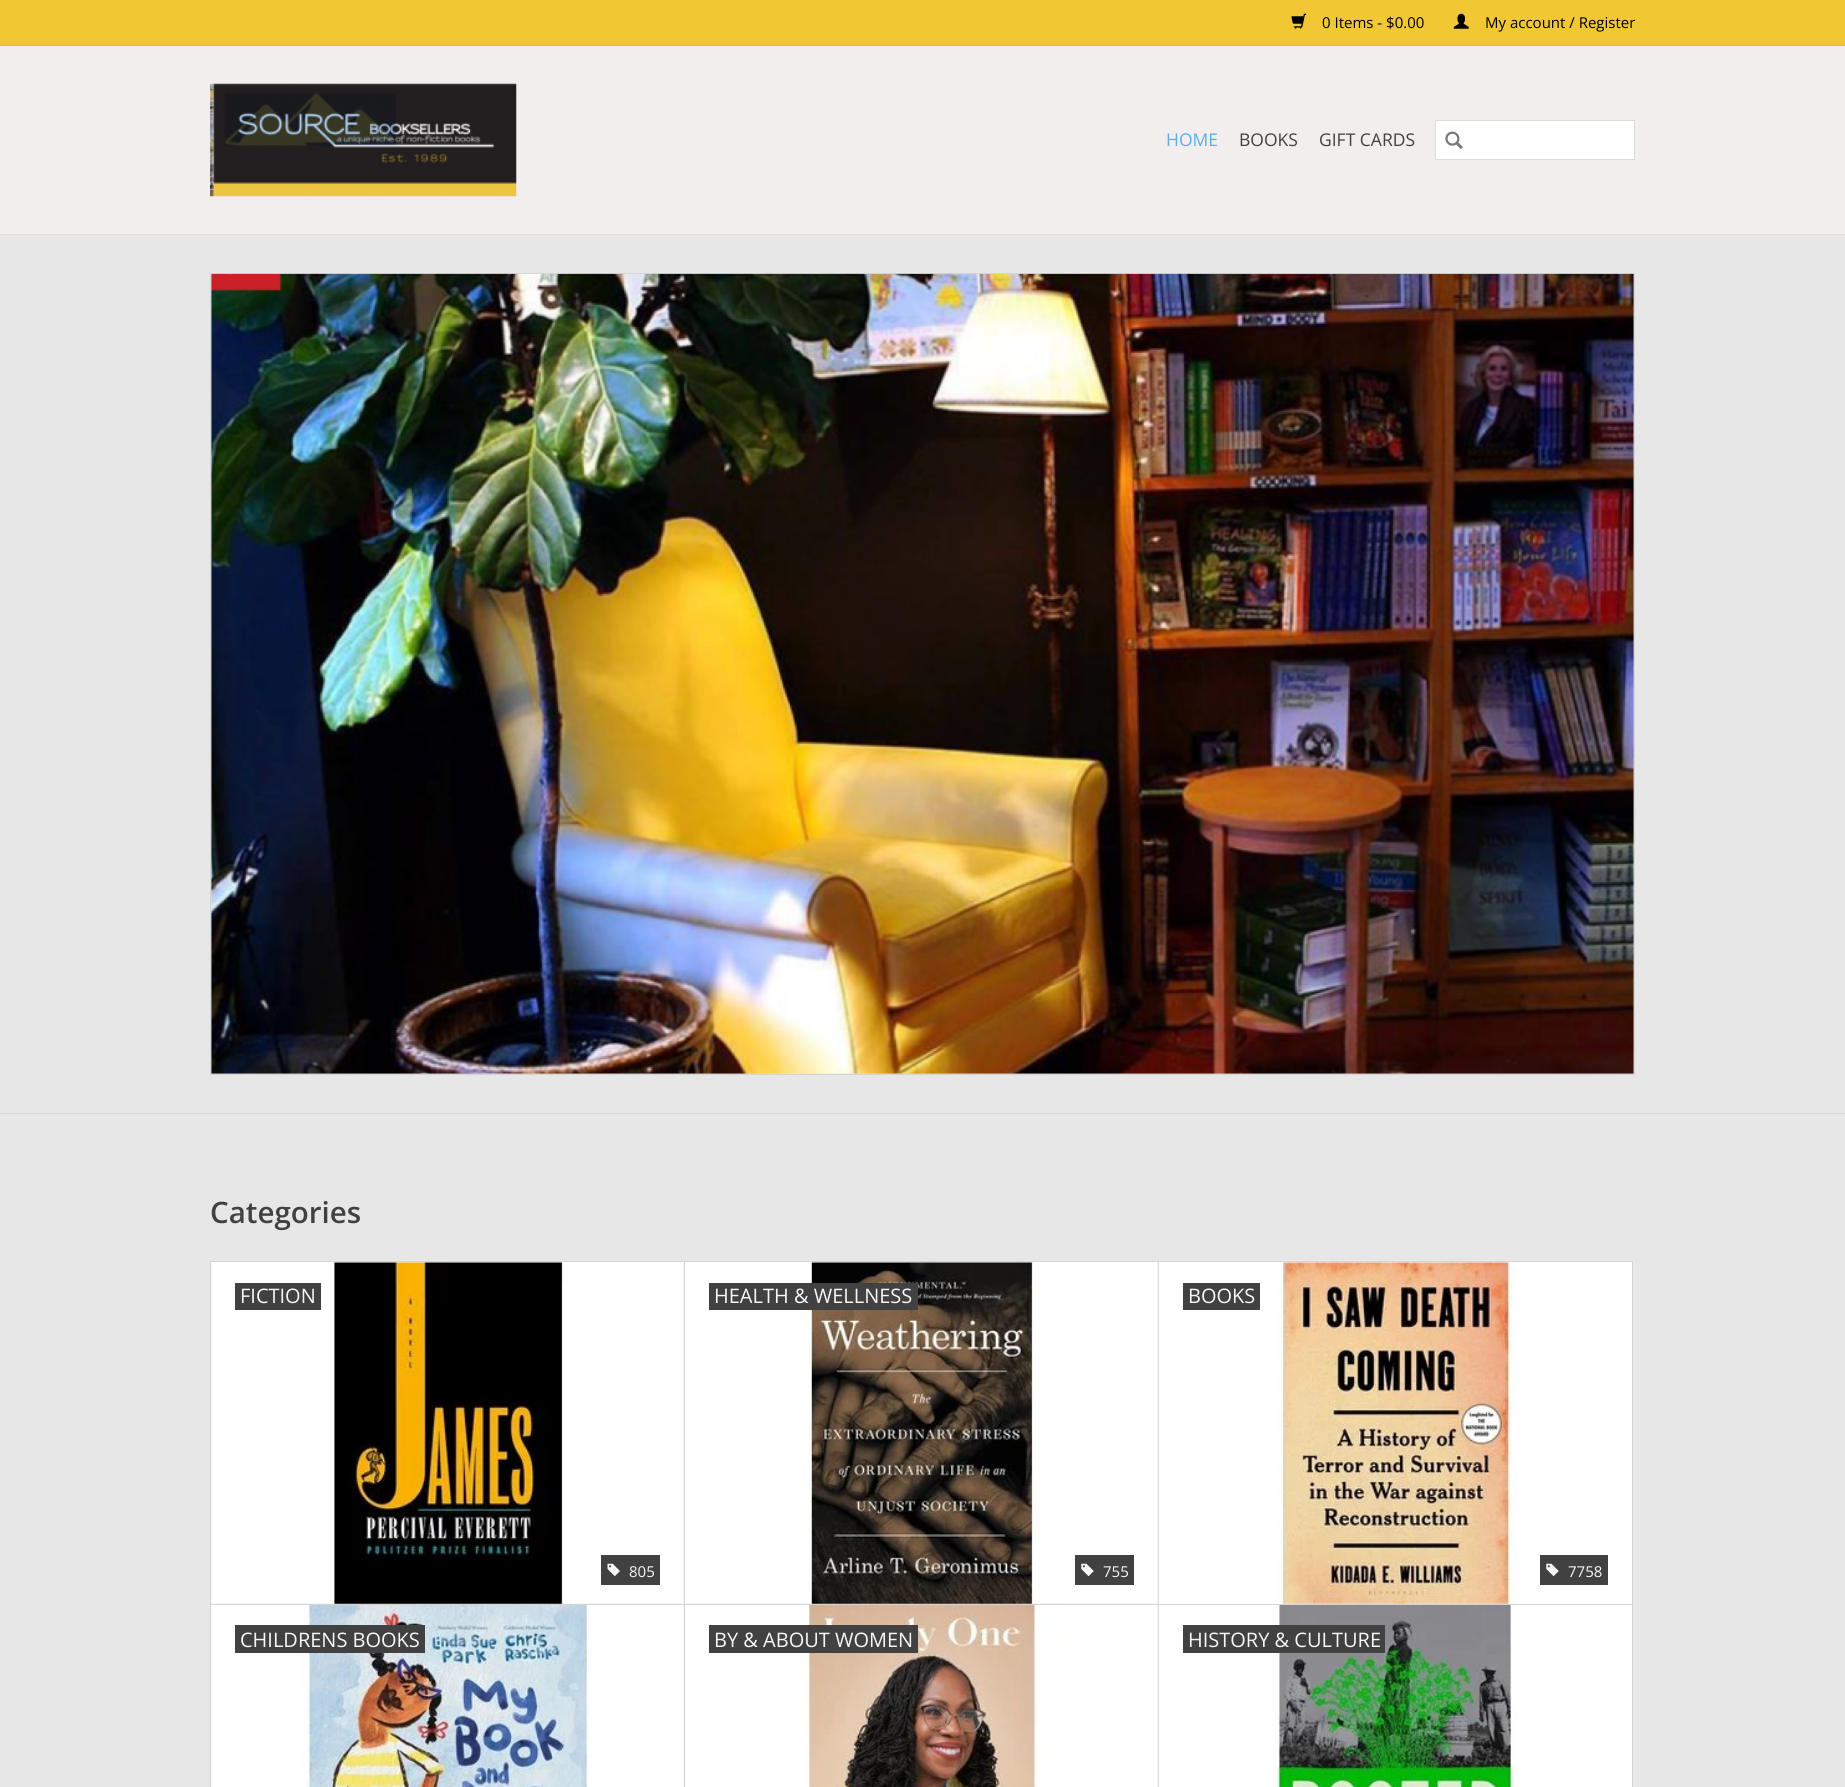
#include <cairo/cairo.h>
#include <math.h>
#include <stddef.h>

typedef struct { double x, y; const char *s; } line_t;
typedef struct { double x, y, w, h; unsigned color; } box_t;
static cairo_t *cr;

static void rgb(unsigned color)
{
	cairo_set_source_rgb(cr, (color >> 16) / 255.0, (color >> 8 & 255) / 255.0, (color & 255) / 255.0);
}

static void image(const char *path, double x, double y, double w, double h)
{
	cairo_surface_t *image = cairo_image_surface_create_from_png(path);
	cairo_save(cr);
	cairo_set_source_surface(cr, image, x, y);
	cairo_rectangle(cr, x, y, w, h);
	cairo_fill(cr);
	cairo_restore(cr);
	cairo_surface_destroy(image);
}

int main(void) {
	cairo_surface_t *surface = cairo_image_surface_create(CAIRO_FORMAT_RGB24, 1845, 1787);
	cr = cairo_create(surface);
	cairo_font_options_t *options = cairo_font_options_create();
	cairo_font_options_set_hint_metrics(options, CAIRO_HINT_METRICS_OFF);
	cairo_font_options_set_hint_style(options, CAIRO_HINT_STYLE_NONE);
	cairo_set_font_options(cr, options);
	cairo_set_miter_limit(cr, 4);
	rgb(0xe7e7e7);
	cairo_paint(cr);
	{
		static const box_t items[] = {
			{0, 46, 1845, 188, 0xf2eeee},
			{0, 234, 1845, 1, 0xdedada},
			{0, 0, 1845, 45, 0xf1c833},
			{0, 45, 1845, 1, 0xe0ba2f},
		};
		for (size_t i = 0; i < sizeof items / sizeof *items; i++) {
			rgb(items[i].color);
			cairo_rectangle(cr, items[i].x, items[i].y, items[i].w, items[i].h);
			cairo_fill(cr);
		}
	}
	image("img/1.png", 1291, 13, 16, 16);
	image("img/2.png", 1453, 13, 16, 16);
	image("img/3.png", 210, 83, 307, 114);
	rgb(0xffffff);
	cairo_rectangle(cr, 1435.5, 120.5, 199, 39);
	cairo_fill_preserve(cr);
	rgb(0xdedada);
	cairo_set_line_width(cr, 1);
	cairo_stroke(cr);
	image("img/4.png", 1445, 131, 18, 18);
	cairo_rectangle(cr, 210.5, 273.5, 1424, 801);
	rgb(0xd4d4d4);
	cairo_stroke(cr);
	rgb(0xe0e0e0);
	cairo_rectangle(cr, 211, 274, 1423, 800);
	cairo_fill(cr);
	image("img/5.png", 211, 273, 1423, 801);
	rgb(0xd4d4d4);
	cairo_rectangle(cr, 0, 1113, 1845, 1);
	cairo_fill(cr);
	rgb(0xffffff);
	cairo_rectangle(cr, 211, 1262, 473, 1);
	cairo_fill(cr);
	cairo_rectangle(cr, 210.5, 1261.5, 474, 343);
	rgb(0xd4d4d4);
	cairo_stroke(cr);
	rgb(0xe0e0e0);
	cairo_rectangle(cr, 211, 1263, 473, 341);
	cairo_fill(cr);
	image("img/6.png", 211, 1262, 473, 342);
	{
		static const box_t items[] = {
			{316, 1283, 5, 27, 0x414141},
			{235, 1283, 81, 27, 0x414141},
			{601, 1555, 59, 30, 0x414141},
		};
		for (size_t i = 0; i < sizeof items / sizeof *items; i++) {
			rgb(items[i].color);
			cairo_rectangle(cr, items[i].x, items[i].y, items[i].w, items[i].h);
			cairo_fill(cr);
		}
	}
	image("img/7.png", 607, 1563, 13, 14);
	rgb(0xffffff);
	cairo_rectangle(cr, 685, 1262, 473, 1);
	cairo_fill(cr);
	cairo_rectangle(cr, 684.5, 1261.5, 474, 343);
	rgb(0xd4d4d4);
	cairo_stroke(cr);
	rgb(0xe0e0e0);
	cairo_rectangle(cr, 685, 1263, 473, 341);
	cairo_fill(cr);
	image("img/8.png", 685, 1262, 473, 342);
	{
		static const box_t items[] = {
			{913, 1283, 5, 27, 0x414141},
			{709, 1283, 204, 27, 0x414141},
			{1075, 1555, 59, 30, 0x414141},
		};
		for (size_t i = 0; i < sizeof items / sizeof *items; i++) {
			rgb(items[i].color);
			cairo_rectangle(cr, items[i].x, items[i].y, items[i].w, items[i].h);
			cairo_fill(cr);
		}
	}
	image("img/9.png", 1081, 1563, 13, 14);
	rgb(0xffffff);
	cairo_rectangle(cr, 1158.5, 1261.5, 474, 343);
	cairo_fill_preserve(cr);
	rgb(0xd4d4d4);
	cairo_stroke(cr);
	image("img/10.png", 1158, 1262, 473, 342);
	{
		static const box_t items[] = {
			{1255, 1283, 5, 27, 0x414141},
			{1183, 1283, 72, 27, 0x414141},
			{1540, 1555, 68, 30, 0x414141},
		};
		for (size_t i = 0; i < sizeof items / sizeof *items; i++) {
			rgb(items[i].color);
			cairo_rectangle(cr, items[i].x, items[i].y, items[i].w, items[i].h);
			cairo_fill(cr);
		}
	}
	image("img/9.png", 1546, 1563, 13, 14);
	cairo_rectangle(cr, 210.5, 1604.5, 474, 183);
	rgb(0xd4d4d4);
	cairo_stroke(cr);
	image("img/11.png", 211, 1605, 473, 182);
	rgb(0x414141);
	cairo_new_path(cr);
	cairo_move_to(cr, 245, 1652);
	cairo_line_to(cr, 245, 1653);
	cairo_line_to(cr, 425, 1653);
	cairo_line_to(cr, 425, 1625);
	cairo_line_to(cr, 420, 1625);
	cairo_line_to(cr, 420, 1652);
	cairo_close_path(cr);
	cairo_fill(cr);
	cairo_new_path(cr);
	cairo_move_to(cr, 235, 1625);
	cairo_line_to(cr, 235, 1653);
	cairo_line_to(cr, 415, 1653);
	cairo_line_to(cr, 415, 1652);
	cairo_line_to(cr, 240, 1652);
	cairo_line_to(cr, 240, 1625);
	cairo_close_path(cr);
	cairo_fill(cr);
	cairo_rectangle(cr, 240, 1625, 180, 27);
	cairo_fill(cr);
	cairo_rectangle(cr, 684.5, 1604.5, 474, 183);
	rgb(0xd4d4d4);
	cairo_stroke(cr);
	rgb(0xe0e0e0);
	cairo_rectangle(cr, 1157, 1605, 1, 182);
	cairo_fill(cr);
	image("img/12.png", 685, 1605, 473, 182);
	rgb(0x414141);
	cairo_new_path(cr);
	cairo_move_to(cr, 719, 1652);
	cairo_line_to(cr, 719, 1653);
	cairo_line_to(cr, 918, 1653);
	cairo_line_to(cr, 918, 1625);
	cairo_line_to(cr, 912, 1625);
	cairo_line_to(cr, 912, 1652);
	cairo_close_path(cr);
	cairo_fill(cr);
	cairo_new_path(cr);
	cairo_move_to(cr, 709, 1625);
	cairo_line_to(cr, 709, 1653);
	cairo_line_to(cr, 908, 1653);
	cairo_line_to(cr, 908, 1652);
	cairo_line_to(cr, 714, 1652);
	cairo_line_to(cr, 714, 1625);
	cairo_close_path(cr);
	cairo_fill(cr);
	cairo_rectangle(cr, 714, 1625, 198, 27);
	cairo_fill(cr);
	rgb(0xffffff);
	cairo_rectangle(cr, 1631, 1605, 1, 182);
	cairo_fill(cr);
	cairo_rectangle(cr, 1158.5, 1604.5, 474, 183);
	rgb(0xd4d4d4);
	cairo_stroke(cr);
	image("img/13.png", 1158, 1605, 473, 182);
	rgb(0x414141);
	cairo_new_path(cr);
	cairo_move_to(cr, 1193, 1652);
	cairo_line_to(cr, 1193, 1653);
	cairo_line_to(cr, 1385, 1653);
	cairo_line_to(cr, 1385, 1625);
	cairo_line_to(cr, 1380, 1625);
	cairo_line_to(cr, 1380, 1652);
	cairo_close_path(cr);
	cairo_fill(cr);
	cairo_new_path(cr);
	cairo_move_to(cr, 1183, 1625);
	cairo_line_to(cr, 1183, 1653);
	cairo_line_to(cr, 1375, 1653);
	cairo_line_to(cr, 1375, 1652);
	cairo_line_to(cr, 1188, 1652);
	cairo_line_to(cr, 1188, 1625);
	cairo_close_path(cr);
	cairo_fill(cr);
	cairo_rectangle(cr, 1188, 1625, 192, 27);
	cairo_fill(cr);
	cairo_select_font_face(cr, "Open Sans", CAIRO_FONT_SLANT_NORMAL, CAIRO_FONT_WEIGHT_NORMAL);
	cairo_set_font_size(cr, 15);
	rgb(0x000000);
	cairo_move_to(cr, 1322, 28);
	cairo_show_text(cr, "0 Items - $0.00");
	cairo_move_to(cr, 1485, 28);
	cairo_show_text(cr, "My account / Register");
	cairo_set_font_size(cr, 17.5);
	rgb(0x54afe9);
	cairo_move_to(cr, 1166, 146);
	cairo_show_text(cr, "HOME");
	rgb(0x414141);
	cairo_move_to(cr, 1239, 146);
	cairo_show_text(cr, "BOOKS");
	cairo_move_to(cr, 1319, 146);
	cairo_show_text(cr, "GIFT CARDS");
	cairo_select_font_face(cr, "Open Sans SemiBold", CAIRO_FONT_SLANT_NORMAL, CAIRO_FONT_WEIGHT_NORMAL);
	cairo_set_font_size(cr, 29.5);
	cairo_move_to(cr, 210, 1223);
	cairo_show_text(cr, "Categories");
	cairo_select_font_face(cr, "Open Sans", CAIRO_FONT_SLANT_NORMAL, CAIRO_FONT_WEIGHT_NORMAL);
	cairo_set_font_size(cr, 20);
	rgb(0xf7f7f7);
	cairo_move_to(cr, 240, 1303);
	cairo_show_text(cr, "FICTION");
	cairo_set_font_size(cr, 15);
	cairo_move_to(cr, 629, 1577);
	cairo_show_text(cr, "805");
	cairo_set_font_size(cr, 20);
	cairo_move_to(cr, 714, 1303);
	cairo_show_text(cr, "HEALTH & WELLNESS");
	cairo_set_font_size(cr, 15);
	cairo_move_to(cr, 1103, 1577);
	cairo_show_text(cr, "755");
	cairo_set_font_size(cr, 20);
	cairo_move_to(cr, 1188, 1303);
	cairo_show_text(cr, "BOOKS");
	cairo_set_font_size(cr, 15);
	cairo_move_to(cr, 1568, 1577);
	cairo_show_text(cr, "7758");
	cairo_set_font_size(cr, 20);
	{
		static const line_t items[] = {
			{240, 1647, "CHILDRENS BOOKS"},
			{714, 1647, "BY & ABOUT WOMEN"},
			{1188, 1647, "HISTORY & CULTURE"},
		};
		for (size_t i = 0; i < sizeof items / sizeof *items; i++) {
			cairo_move_to(cr, items[i].x, items[i].y);
			cairo_show_text(cr, items[i].s);
		}
	}
	cairo_surface_write_to_png(surface, "page.png");
	cairo_font_options_destroy(options);
	cairo_destroy(cr);
	cairo_surface_destroy(surface);
	return 0;
}
